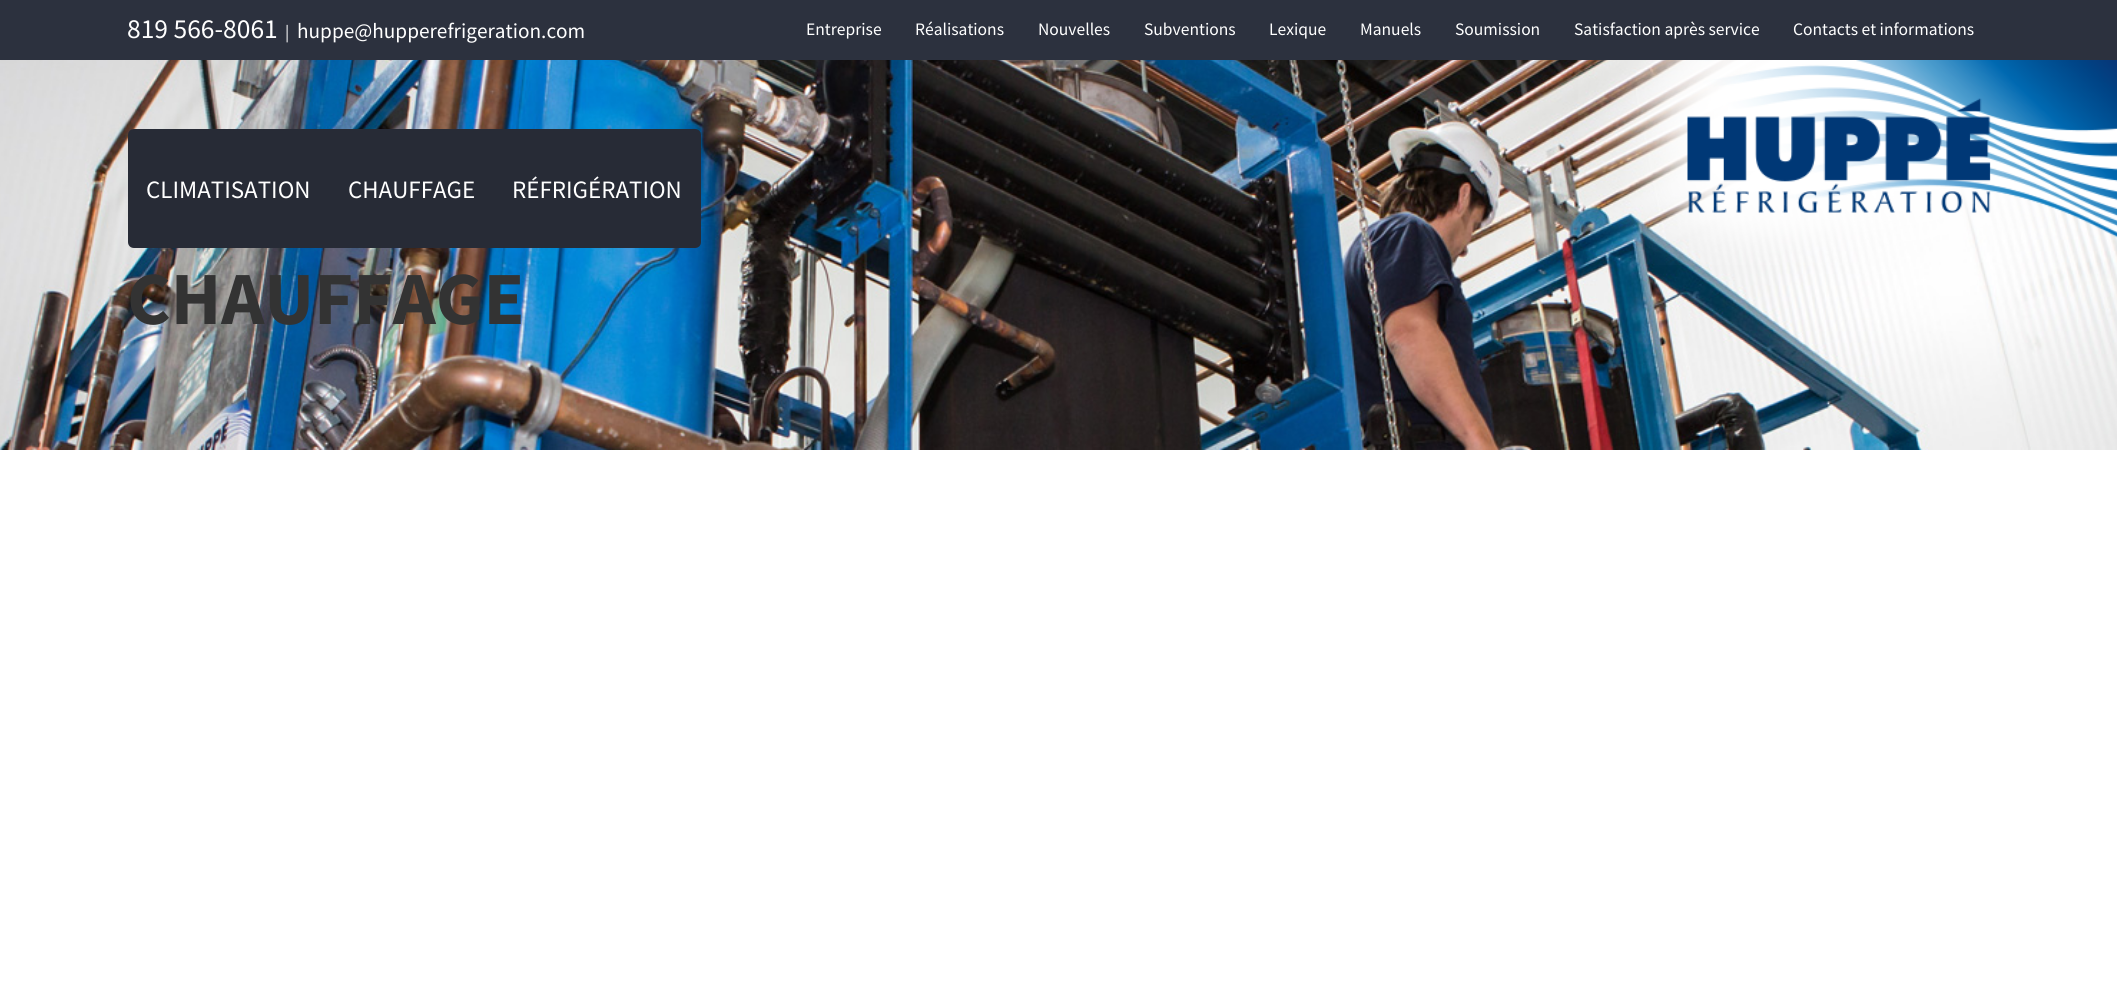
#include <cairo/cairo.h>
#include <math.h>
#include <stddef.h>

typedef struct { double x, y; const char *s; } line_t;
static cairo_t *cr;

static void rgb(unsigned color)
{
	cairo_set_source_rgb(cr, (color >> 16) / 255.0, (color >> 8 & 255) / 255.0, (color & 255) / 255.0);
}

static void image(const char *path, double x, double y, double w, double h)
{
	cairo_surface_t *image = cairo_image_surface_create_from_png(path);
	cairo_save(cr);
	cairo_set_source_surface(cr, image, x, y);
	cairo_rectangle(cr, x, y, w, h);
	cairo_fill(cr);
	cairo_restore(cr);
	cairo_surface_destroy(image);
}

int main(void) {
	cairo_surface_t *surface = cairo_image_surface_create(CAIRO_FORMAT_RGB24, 2117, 988);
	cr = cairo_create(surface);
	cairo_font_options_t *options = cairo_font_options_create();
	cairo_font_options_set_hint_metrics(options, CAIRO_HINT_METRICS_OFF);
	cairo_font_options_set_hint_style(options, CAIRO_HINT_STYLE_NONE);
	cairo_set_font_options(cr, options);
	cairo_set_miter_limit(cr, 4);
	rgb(0xffffff);
	cairo_paint(cr);
	rgb(0x2c313e);
	cairo_rectangle(cr, 0, 0, 2117, 60);
	cairo_fill(cr);
	image("img/3.png", 0, 60, 2117, 390);
	rgb(0x272b36);
	cairo_new_path(cr);
	cairo_move_to(cr, 134, 129);
	cairo_line_to(cr, 329, 129);
	cairo_line_to(cr, 329, 248);
	cairo_line_to(cr, 134, 248);
	cairo_curve_to(cr, 130.5, 248, 128, 245.5, 128, 242);
	cairo_line_to(cr, 128, 135);
	cairo_curve_to(cr, 128, 131.5, 130.5, 129, 134, 129);
	cairo_close_path(cr);
	cairo_fill(cr);
	cairo_rectangle(cr, 329, 129, 165, 119);
	cairo_fill(cr);
	cairo_new_path(cr);
	cairo_move_to(cr, 494, 129);
	cairo_line_to(cr, 695, 129);
	cairo_curve_to(cr, 698.5, 129, 701, 131.5, 701, 135);
	cairo_line_to(cr, 701, 242);
	cairo_curve_to(cr, 701, 245.5, 698.5, 248, 695, 248);
	cairo_line_to(cr, 494, 248);
	cairo_close_path(cr);
	cairo_fill(cr);
	image("img/2.png", 1578, 60, 539, 205);
	image("img/1.png", 1687, 98, 304, 115);
	cairo_select_font_face(cr, "Source Sans Pro", CAIRO_FONT_SLANT_NORMAL, CAIRO_FONT_WEIGHT_NORMAL);
	cairo_set_font_size(cr, 27.5);
	rgb(0xffffff);
	cairo_move_to(cr, 127, 38);
	cairo_show_text(cr, "819 566-8061");
	cairo_set_font_size(cr, 17.5);
	cairo_move_to(cr, 285, 38);
	cairo_show_text(cr, "|");
	cairo_set_font_size(cr, 21.25);
	cairo_move_to(cr, 297, 38);
	cairo_show_text(cr, "huppe@hupperefrigeration.com");
	cairo_set_font_size(cr, 17.5);
	{
		static const line_t items[] = {
			{806, 35, "Entreprise"},
			{915, 35, "Réalisations"},
			{1038, 35, "Nouvelles"},
			{1144, 35, "Subventions"},
			{1269, 35, "Lexique"},
			{1360, 35, "Manuels"},
			{1455, 35, "Soumission"},
			{1574, 35, "Satisfaction après service"},
			{1793, 35, "Contacts et informations"},
		};
		for (size_t i = 0; i < sizeof items / sizeof *items; i++) {
			cairo_move_to(cr, items[i].x, items[i].y);
			cairo_show_text(cr, items[i].s);
		}
	}
	cairo_set_font_size(cr, 25);
	{
		static const line_t items[] = {
			{146, 198, "CLIMATISATION"},
			{348, 198, "CHAUFFAGE"},
			{512, 198, "RÉFRIGÉRATION"},
		};
		for (size_t i = 0; i < sizeof items / sizeof *items; i++) {
			cairo_move_to(cr, items[i].x, items[i].y);
			cairo_show_text(cr, items[i].s);
		}
	}
	cairo_select_font_face(cr, "Source Sans Pro", CAIRO_FONT_SLANT_NORMAL, CAIRO_FONT_WEIGHT_BOLD);
	cairo_set_font_size(cr, 75);
	rgb(0x333333);
	cairo_move_to(cr, 127, 324);
	cairo_show_text(cr, "CHAUFFAGE");
	cairo_surface_write_to_png(surface, "page.png");
	cairo_font_options_destroy(options);
	cairo_destroy(cr);
	cairo_surface_destroy(surface);
	return 0;
}
